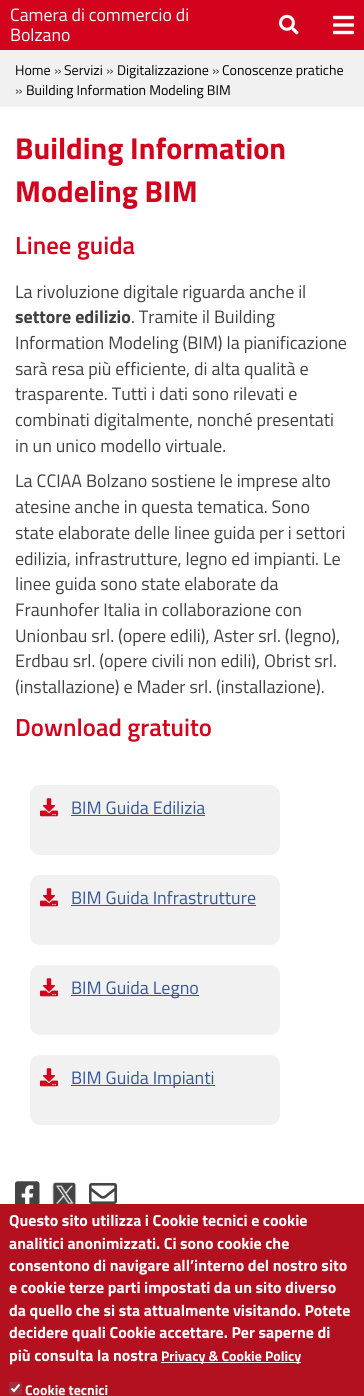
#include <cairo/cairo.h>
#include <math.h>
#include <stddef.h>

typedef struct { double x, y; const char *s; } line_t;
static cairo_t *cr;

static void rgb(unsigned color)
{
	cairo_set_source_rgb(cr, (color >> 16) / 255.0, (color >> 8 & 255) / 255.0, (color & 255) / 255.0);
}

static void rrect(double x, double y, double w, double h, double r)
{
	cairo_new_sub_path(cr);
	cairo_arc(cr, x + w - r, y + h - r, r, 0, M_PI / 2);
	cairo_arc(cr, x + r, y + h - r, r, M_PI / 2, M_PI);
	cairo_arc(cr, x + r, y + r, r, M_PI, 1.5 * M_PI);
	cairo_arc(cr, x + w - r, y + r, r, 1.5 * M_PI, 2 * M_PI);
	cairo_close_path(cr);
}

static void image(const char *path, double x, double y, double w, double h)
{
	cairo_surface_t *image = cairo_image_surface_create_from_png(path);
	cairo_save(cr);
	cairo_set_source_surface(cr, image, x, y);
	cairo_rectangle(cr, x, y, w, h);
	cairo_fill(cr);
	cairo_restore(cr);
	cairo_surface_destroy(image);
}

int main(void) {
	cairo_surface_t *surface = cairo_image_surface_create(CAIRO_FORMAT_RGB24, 364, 1396);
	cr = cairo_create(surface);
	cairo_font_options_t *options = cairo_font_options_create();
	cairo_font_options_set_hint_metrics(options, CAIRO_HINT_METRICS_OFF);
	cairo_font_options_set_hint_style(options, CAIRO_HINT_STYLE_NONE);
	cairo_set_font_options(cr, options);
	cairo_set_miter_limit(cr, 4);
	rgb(0xffffff);
	cairo_paint(cr);
	rgb(0xd3021d);
	cairo_rectangle(cr, 0, 0, 364, 50);
	cairo_fill(cr);
	image("img/1.png", 279, 14, 20, 21);
	image("img/2.png", 333, 15, 21, 20);
	rgb(0xf1f1f1);
	cairo_rectangle(cr, 0, 50, 364, 57);
	cairo_fill(cr);
	rrect(30, 785, 250, 70, 10);
	cairo_fill(cr);
	image("img/3.png", 40, 798, 18, 19);
	rgb(0x365899);
	cairo_rectangle(cr, 71, 815, 134, 1);
	cairo_fill(cr);
	rgb(0xf1f1f1);
	rrect(30, 875, 250, 70, 10);
	cairo_fill(cr);
	image("img/3.png", 40, 888, 18, 19);
	rgb(0x365899);
	cairo_rectangle(cr, 71, 905, 185, 1);
	cairo_fill(cr);
	rgb(0xf1f1f1);
	rrect(30, 965, 250, 70, 10);
	cairo_fill(cr);
	image("img/3.png", 40, 978, 18, 19);
	rgb(0x365899);
	cairo_rectangle(cr, 71, 995, 128, 1);
	cairo_fill(cr);
	rgb(0xf1f1f1);
	rrect(30, 1055, 250, 70, 10);
	cairo_fill(cr);
	image("img/3.png", 40, 1068, 18, 19);
	rgb(0x365899);
	cairo_rectangle(cr, 71, 1085, 144, 1);
	cairo_fill(cr);
	image("img/4.png", 15, 1181, 25, 23);
	image("img/5.png", 52, 1182, 25, 22);
	image("img/6.png", 89, 1183, 28, 21);
	rgb(0xb31120);
	cairo_rectangle(cr, 0, 1204, 364, 192);
	cairo_fill(cr);
	rgb(0xffffff);
	cairo_rectangle(cr, 161, 1362, 140, 1);
	cairo_fill(cr);
	rgb(0xa12f3a);
	rrect(9, 1382, 13, 13, 2);
	cairo_fill(cr);
	cairo_new_path(cr);
	cairo_move_to(cr, 11.5, 1388.5);
	cairo_line_to(cr, 14, 1391);
	cairo_line_to(cr, 19.5, 1384.5);
	rgb(0xffffff);
	cairo_set_line_width(cr, 2.1);
	cairo_stroke(cr);
	cairo_select_font_face(cr, "Titillium Web", CAIRO_FONT_SLANT_NORMAL, CAIRO_FONT_WEIGHT_NORMAL);
	cairo_set_font_size(cr, 17.8);
	cairo_move_to(cr, 10, 21);
	cairo_show_text(cr, "Camera di commercio di");
	cairo_move_to(cr, 10, 41);
	cairo_show_text(cr, "Bolzano");
	cairo_set_font_size(cr, 14);
	rgb(0x000000);
	cairo_move_to(cr, 15, 75);
	cairo_show_text(cr, "Home");
	rgb(0x414141);
	cairo_move_to(cr, 54, 75);
	cairo_show_text(cr, "»");
	rgb(0x000000);
	cairo_move_to(cr, 64, 75);
	cairo_show_text(cr, "Servizi");
	rgb(0x414141);
	cairo_move_to(cr, 106, 75);
	cairo_show_text(cr, "»");
	rgb(0x000000);
	cairo_move_to(cr, 117, 75);
	cairo_show_text(cr, "Digitalizzazione");
	rgb(0x414141);
	cairo_move_to(cr, 212, 75);
	cairo_show_text(cr, "»");
	rgb(0x000000);
	cairo_move_to(cr, 222, 75);
	cairo_show_text(cr, "Conoscenze pratiche");
	rgb(0x414141);
	cairo_move_to(cr, 15, 95);
	cairo_show_text(cr, "»");
	rgb(0x000000);
	cairo_move_to(cr, 26, 95);
	cairo_show_text(cr, "Building Information Modeling BIM");
	cairo_select_font_face(cr, "Titillium Web", CAIRO_FONT_SLANT_NORMAL, CAIRO_FONT_WEIGHT_BOLD);
	cairo_set_font_size(cr, 30.25);
	rgb(0xd3021d);
	cairo_move_to(cr, 15, 159);
	cairo_show_text(cr, "Building Information");
	cairo_move_to(cr, 15, 202);
	cairo_show_text(cr, "Modeling BIM");
	cairo_select_font_face(cr, "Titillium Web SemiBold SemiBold", CAIRO_FONT_SLANT_NORMAL, CAIRO_FONT_WEIGHT_NORMAL);
	cairo_set_font_size(cr, 24.75);
	cairo_move_to(cr, 15, 254);
	cairo_show_text(cr, "Linee guida");
	cairo_select_font_face(cr, "Titillium Web", CAIRO_FONT_SLANT_NORMAL, CAIRO_FONT_WEIGHT_NORMAL);
	cairo_set_font_size(cr, 18);
	rgb(0x414141);
	cairo_move_to(cr, 15, 298);
	cairo_show_text(cr, "La rivoluzione digitale riguarda anche il");
	cairo_select_font_face(cr, "Titillium Web", CAIRO_FONT_SLANT_NORMAL, CAIRO_FONT_WEIGHT_BOLD);
	cairo_move_to(cr, 15, 323);
	cairo_show_text(cr, "settore edilizio");
	cairo_select_font_face(cr, "Titillium Web", CAIRO_FONT_SLANT_NORMAL, CAIRO_FONT_WEIGHT_NORMAL);
	{
		static const line_t items[] = {
			{131, 323, ". Tramite il Building"},
			{15, 349, "Information Modeling (BIM) la pianificazione"},
			{15, 375, "sarà resa più efficiente, di alta qualità e"},
			{15, 400, "trasparente. Tutti i dati sono rilevati e"},
			{15, 426, "combinati digitalmente, nonché presentati"},
			{15, 452, "in un unico modello virtuale."},
			{15, 487, "La CCIAA Bolzano sostiene le imprese alto"},
			{15, 513, "atesine anche in questa tematica. Sono"},
			{15, 539, "state elaborate delle linee guida per i settori"},
			{15, 565, "edilizia, infrastrutture, legno ed impianti. Le"},
			{15, 590, "linee guida sono state elaborate da"},
			{15, 616, "Fraunhofer Italia in collaborazione con"},
			{15, 642, "Unionbau srl. (opere edili), Aster srl. (legno),"},
			{15, 667, "Erdbau srl. (opere civili non edili), Obrist srl."},
			{15, 693, "(installazione) e Mader srl. (installazione)."},
		};
		for (size_t i = 0; i < sizeof items / sizeof *items; i++) {
			cairo_move_to(cr, items[i].x, items[i].y);
			cairo_show_text(cr, items[i].s);
		}
	}
	cairo_select_font_face(cr, "Titillium Web SemiBold SemiBold", CAIRO_FONT_SLANT_NORMAL, CAIRO_FONT_WEIGHT_NORMAL);
	cairo_set_font_size(cr, 24.75);
	rgb(0xd3021d);
	cairo_move_to(cr, 15, 736);
	cairo_show_text(cr, "Download gratuito");
	cairo_select_font_face(cr, "Titillium Web", CAIRO_FONT_SLANT_NORMAL, CAIRO_FONT_WEIGHT_NORMAL);
	cairo_set_font_size(cr, 18);
	rgb(0x365899);
	{
		static const line_t items[] = {
			{71, 814, "BIM Guida Edilizia"},
			{71, 904, "BIM Guida Infrastrutture"},
			{71, 994, "BIM Guida Legno"},
			{71, 1084, "BIM Guida Impianti"},
		};
		for (size_t i = 0; i < sizeof items / sizeof *items; i++) {
			cairo_move_to(cr, items[i].x, items[i].y);
			cairo_show_text(cr, items[i].s);
		}
	}
	cairo_select_font_face(cr, "Titillium Web", CAIRO_FONT_SLANT_NORMAL, CAIRO_FONT_WEIGHT_BOLD);
	cairo_set_font_size(cr, 16);
	rgb(0xffffff);
	{
		static const line_t items[] = {
			{9, 1226, "Questo sito utilizza i Cookie tecnici e cookie"},
			{9, 1249, "analitici anonimizzati. Ci sono cookie che"},
			{9, 1271, "consentono di navigare all’interno del nostro sito"},
			{9, 1293, "e cookie terze parti impostati da un sito diverso"},
			{9, 1316, "da quello che si sta attualmente visitando. Potete"},
			{9, 1338, "decidere quali Cookie accettare. Per saperne di"},
			{9, 1361, "più consulta la nostra"},
		};
		for (size_t i = 0; i < sizeof items / sizeof *items; i++) {
			cairo_move_to(cr, items[i].x, items[i].y);
			cairo_show_text(cr, items[i].s);
		}
	}
	cairo_set_font_size(cr, 14);
	cairo_move_to(cr, 161, 1361);
	cairo_show_text(cr, "Privacy & Cookie Policy");
	cairo_move_to(cr, 25, 1395);
	cairo_show_text(cr, "Cookie tecnici");
	cairo_surface_write_to_png(surface, "page.png");
	cairo_font_options_destroy(options);
	cairo_destroy(cr);
	cairo_surface_destroy(surface);
	return 0;
}
